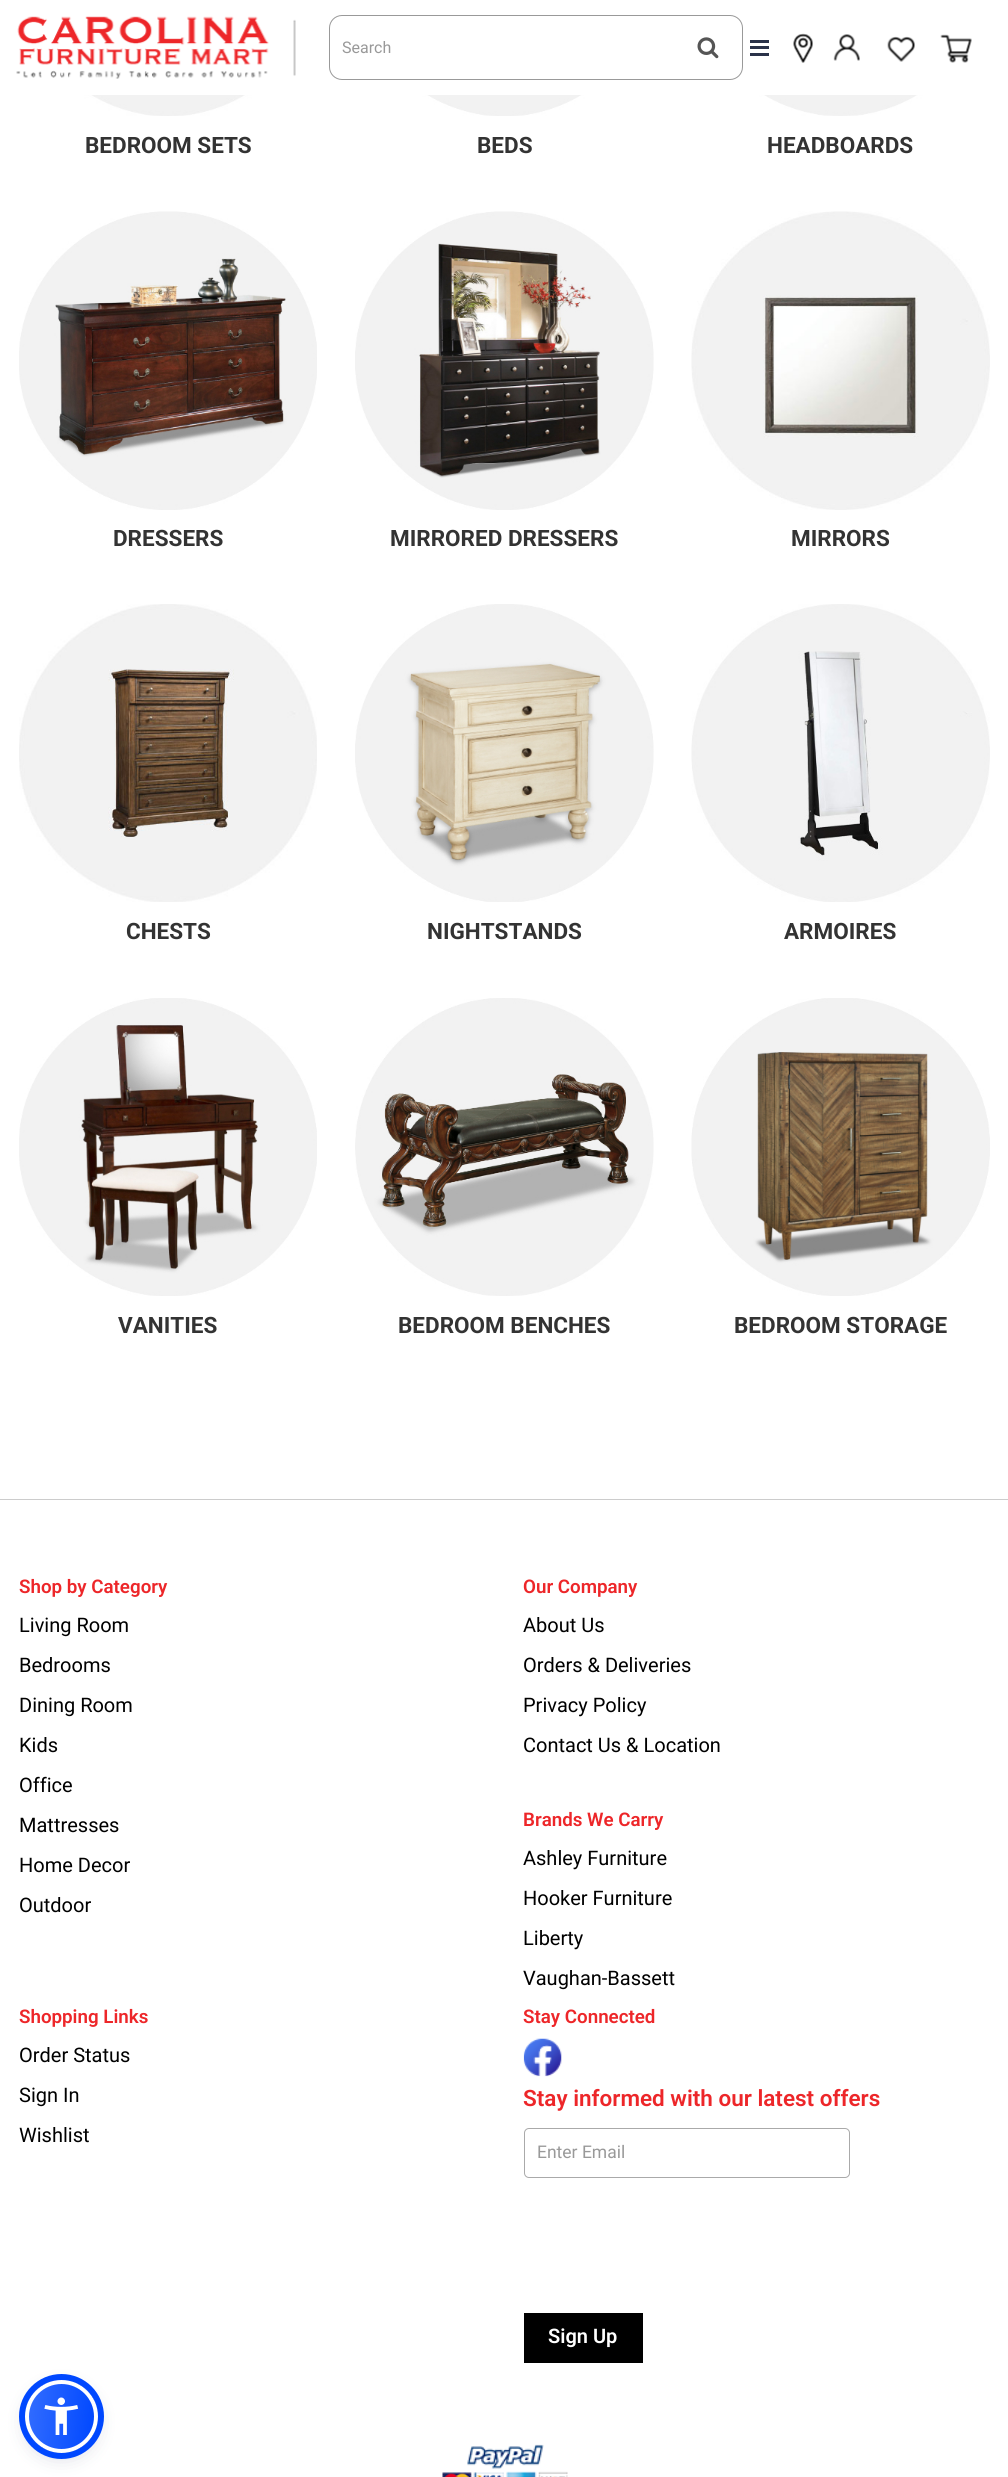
#include <cairo/cairo.h>
#include <math.h>
#include <stddef.h>

typedef struct { double x, y; const char *s; } line_t;
typedef struct { double x, y, w, h; unsigned color; } box_t;
static cairo_t *cr;

static void rgb(unsigned color)
{
	cairo_set_source_rgb(cr, (color >> 16) / 255.0, (color >> 8 & 255) / 255.0, (color & 255) / 255.0);
}

static void rrect(double x, double y, double w, double h, double r)
{
	cairo_new_sub_path(cr);
	cairo_arc(cr, x + w - r, y + h - r, r, 0, M_PI / 2);
	cairo_arc(cr, x + r, y + h - r, r, M_PI / 2, M_PI);
	cairo_arc(cr, x + r, y + r, r, M_PI, 1.5 * M_PI);
	cairo_arc(cr, x + w - r, y + r, r, 1.5 * M_PI, 2 * M_PI);
	cairo_close_path(cr);
}

static void soft_shadow(double x, double y, double w, double h, double r, double blur, double alpha)
{
	cairo_push_group_with_content(cr, CAIRO_CONTENT_ALPHA);
	cairo_set_operator(cr, CAIRO_OPERATOR_SOURCE);
	for (int i = 15; i >= -15 && fmin(w, h) + blur * i / 3 > 0; i -= 2) {
		double e = blur * i / 6;
		cairo_set_source_rgba(cr, 0, 0, 0, alpha * erfc((i - 1) / 8.5) / 2);
		rrect(x - e, y - e, w + 2 * e, h + 2 * e, fmax(0, fmin(r + e + blur * .6, fmin(w, h) / 2 + e)));
		cairo_fill(cr);
	}
	cairo_pattern_t *soft = cairo_pop_group(cr);
	cairo_mask(cr, soft);
	cairo_pattern_destroy(soft);
}

static void image(const char *path, double x, double y, double w, double h)
{
	cairo_surface_t *image = cairo_image_surface_create_from_png(path);
	cairo_save(cr);
	cairo_set_source_surface(cr, image, x, y);
	cairo_rectangle(cr, x, y, w, h);
	cairo_fill(cr);
	cairo_restore(cr);
	cairo_surface_destroy(image);
}

int main(void) {
	cairo_surface_t *surface = cairo_image_surface_create(CAIRO_FORMAT_RGB24, 1008, 2477);
	cr = cairo_create(surface);
	cairo_font_options_t *options = cairo_font_options_create();
	cairo_font_options_set_hint_metrics(options, CAIRO_HINT_METRICS_OFF);
	cairo_font_options_set_hint_style(options, CAIRO_HINT_STYLE_NONE);
	cairo_set_font_options(cr, options);
	cairo_set_miter_limit(cr, 4);
	cairo_pattern_t *gradient;
	rgb(0xffffff);
	cairo_paint(cr);
	image("img/1.png", 16, 16, 280, 63);
	rrect(329.5, 15.5, 413, 64, 12.5);
	rgb(0x999999);
	cairo_set_line_width(cr, 1);
	cairo_stroke(cr);
	image("img/2.png", 697, 37, 22, 22);
	{
		static const box_t items[] = {
			{750, 40, 19, 3, 0x2a3249},
			{750, 46, 19, 3, 0x2a3249},
			{750, 53, 19, 3, 0x2a3249},
		};
		for (size_t i = 0; i < sizeof items / sizeof *items; i++) {
			rgb(items[i].color);
			cairo_rectangle(cr, items[i].x, items[i].y, items[i].w, items[i].h);
			cairo_fill(cr);
		}
	}
	image("img/3.png", 793, 33, 20, 30);
	image("img/4.png", 833, 34, 27, 27);
	image("img/5.png", 887, 36, 28, 26);
	image("img/6.png", 940, 34, 32, 29);
	image("img/7.png", 22, 95, 292, 21);
	image("img/8.png", 359, 95, 291, 21);
	image("img/9.png", 695, 95, 291, 21);
	image("img/10.png", 19, 211, 298, 299);
	image("img/11.png", 355, 211, 299, 299);
	image("img/12.png", 691, 211, 299, 299);
	image("img/13.png", 19, 604, 298, 298);
	image("img/14.png", 355, 604, 299, 298);
	image("img/15.png", 691, 604, 299, 298);
	image("img/16.png", 19, 998, 298, 298);
	image("img/17.png", 355, 998, 299, 298);
	image("img/18.png", 691, 998, 299, 298);
	rgb(0xcccccc);
	cairo_rectangle(cr, 0, 1499, 1008, 1);
	cairo_fill(cr);
	image("img/19.png", 523, 2038, 39, 39);
	rrect(524.5, 2128.5, 325, 49, 4.5);
	rgb(0xaaaaaa);
	cairo_stroke(cr);
	rgb(0x000000);
	cairo_rectangle(cr, 524, 2313, 119, 50);
	cairo_fill(cr);
	image("img/20.png", 442, 2444, 126, 33);
	rgb(0x5d6494);
	soft_shadow(25, 2383, 73, 72, 36, 2.5, 0.2);
	rgb(0x252c61);
	soft_shadow(25, 2386, 73, 73, 36.5, 9.5, 0.15);
	cairo_save(cr);
	rrect(25, 2380, 73, 73, 36.5);
	cairo_clip(cr);
	gradient = cairo_pattern_create_linear(26, 2413, 97, 2420);
	cairo_pattern_add_color_stop_rgba(gradient, 0, 0.196, 0.424, 1, 1);
	cairo_pattern_add_color_stop_rgba(gradient, 1, 0, 0.282, 1, 1);
	cairo_set_source(cr, gradient);
	cairo_pattern_destroy(gradient);
	cairo_rectangle(cr, 29, 2384, 65, 65);
	cairo_fill(cr);
	cairo_restore(cr);
	cairo_arc(cr, 61.5, 2416.5, 34.5, 0, 2 * M_PI);
	rgb(0xffffff);
	cairo_set_line_width(cr, 4);
	cairo_stroke(cr);
	cairo_arc(cr, 61.5, 2416.5, 39.5, 0, 2 * M_PI);
	rgb(0x0048ff);
	cairo_set_line_width(cr, 6);
	cairo_stroke(cr);
	image("img/21.png", 44, 2397, 35, 38);
	cairo_select_font_face(cr, "Roboto", CAIRO_FONT_SLANT_NORMAL, CAIRO_FONT_WEIGHT_NORMAL);
	cairo_set_font_size(cr, 16);
	rgb(0x999999);
	cairo_move_to(cr, 342, 53);
	cairo_show_text(cr, "Search");
	cairo_select_font_face(cr, "Roboto", CAIRO_FONT_SLANT_NORMAL, CAIRO_FONT_WEIGHT_BOLD);
	cairo_set_font_size(cr, 22.5);
	rgb(0x333333);
	{
		static const line_t items[] = {
			{85, 153, "BEDROOM SETS"},
			{477, 153, "BEDS"},
			{767, 153, "HEADBOARDS"},
			{113, 546, "DRESSERS"},
			{390, 546, "MIRRORED DRESSERS"},
			{791, 546, "MIRRORS"},
			{126, 939, "CHESTS"},
			{427, 939, "NIGHTSTANDS"},
			{784, 939, "ARMOIRES"},
			{118, 1333, "VANITIES"},
			{398, 1333, "BEDROOM BENCHES"},
			{734, 1333, "BEDROOM STORAGE"},
		};
		for (size_t i = 0; i < sizeof items / sizeof *items; i++) {
			cairo_move_to(cr, items[i].x, items[i].y);
			cairo_show_text(cr, items[i].s);
		}
	}
	cairo_select_font_face(cr, "Roboto SemiBold", CAIRO_FONT_SLANT_NORMAL, CAIRO_FONT_WEIGHT_NORMAL);
	cairo_set_font_size(cr, 18.75);
	rgb(0xed2629);
	cairo_move_to(cr, 19, 1593);
	cairo_show_text(cr, "Shop by Category");
	cairo_select_font_face(cr, "Roboto", CAIRO_FONT_SLANT_NORMAL, CAIRO_FONT_WEIGHT_NORMAL);
	cairo_set_font_size(cr, 20);
	rgb(0x000000);
	{
		static const line_t items[] = {
			{19, 1632, "Living Room"},
			{19, 1672, "Bedrooms"},
			{19, 1712, "Dining Room"},
			{19, 1752, "Kids"},
			{19, 1792, "Office"},
			{19, 1832, "Mattresses"},
			{19, 1872, "Home Decor"},
			{19, 1912, "Outdoor"},
		};
		for (size_t i = 0; i < sizeof items / sizeof *items; i++) {
			cairo_move_to(cr, items[i].x, items[i].y);
			cairo_show_text(cr, items[i].s);
		}
	}
	cairo_select_font_face(cr, "Roboto SemiBold", CAIRO_FONT_SLANT_NORMAL, CAIRO_FONT_WEIGHT_NORMAL);
	cairo_set_font_size(cr, 18.75);
	rgb(0xed2629);
	cairo_move_to(cr, 523, 1593);
	cairo_show_text(cr, "Our Company");
	cairo_select_font_face(cr, "Roboto", CAIRO_FONT_SLANT_NORMAL, CAIRO_FONT_WEIGHT_NORMAL);
	cairo_set_font_size(cr, 20);
	rgb(0x000000);
	{
		static const line_t items[] = {
			{523, 1632, "About Us"},
			{523, 1672, "Orders & Deliveries"},
			{523, 1712, "Privacy Policy"},
			{523, 1752, "Contact Us & Location"},
		};
		for (size_t i = 0; i < sizeof items / sizeof *items; i++) {
			cairo_move_to(cr, items[i].x, items[i].y);
			cairo_show_text(cr, items[i].s);
		}
	}
	cairo_select_font_face(cr, "Roboto SemiBold", CAIRO_FONT_SLANT_NORMAL, CAIRO_FONT_WEIGHT_NORMAL);
	cairo_set_font_size(cr, 18.75);
	rgb(0xed2629);
	cairo_move_to(cr, 523, 1826);
	cairo_show_text(cr, "Brands We Carry");
	cairo_select_font_face(cr, "Roboto", CAIRO_FONT_SLANT_NORMAL, CAIRO_FONT_WEIGHT_NORMAL);
	cairo_set_font_size(cr, 20);
	rgb(0x000000);
	{
		static const line_t items[] = {
			{523, 1865, "Ashley Furniture"},
			{523, 1905, "Hooker Furniture"},
			{523, 1945, "Liberty"},
			{523, 1985, "Vaughan-Bassett"},
		};
		for (size_t i = 0; i < sizeof items / sizeof *items; i++) {
			cairo_move_to(cr, items[i].x, items[i].y);
			cairo_show_text(cr, items[i].s);
		}
	}
	cairo_select_font_face(cr, "Roboto SemiBold", CAIRO_FONT_SLANT_NORMAL, CAIRO_FONT_WEIGHT_NORMAL);
	cairo_set_font_size(cr, 18.75);
	rgb(0xed2629);
	cairo_move_to(cr, 19, 2023);
	cairo_show_text(cr, "Shopping Links");
	cairo_select_font_face(cr, "Roboto", CAIRO_FONT_SLANT_NORMAL, CAIRO_FONT_WEIGHT_NORMAL);
	cairo_set_font_size(cr, 20);
	rgb(0x000000);
	{
		static const line_t items[] = {
			{19, 2062, "Order Status"},
			{19, 2102, "Sign In"},
			{19, 2142, "Wishlist"},
		};
		for (size_t i = 0; i < sizeof items / sizeof *items; i++) {
			cairo_move_to(cr, items[i].x, items[i].y);
			cairo_show_text(cr, items[i].s);
		}
	}
	cairo_select_font_face(cr, "Roboto SemiBold", CAIRO_FONT_SLANT_NORMAL, CAIRO_FONT_WEIGHT_NORMAL);
	cairo_set_font_size(cr, 18.75);
	rgb(0xed2629);
	cairo_move_to(cr, 523, 2023);
	cairo_show_text(cr, "Stay Connected");
	cairo_set_font_size(cr, 22.5);
	cairo_move_to(cr, 523, 2106);
	cairo_show_text(cr, "Stay informed with our latest offers");
	cairo_select_font_face(cr, "Roboto", CAIRO_FONT_SLANT_NORMAL, CAIRO_FONT_WEIGHT_NORMAL);
	cairo_set_font_size(cr, 17.5);
	rgb(0x999999);
	cairo_move_to(cr, 537, 2158);
	cairo_show_text(cr, "Enter Email");
	cairo_select_font_face(cr, "Roboto SemiBold", CAIRO_FONT_SLANT_NORMAL, CAIRO_FONT_WEIGHT_NORMAL);
	cairo_set_font_size(cr, 20);
	rgb(0xffffff);
	cairo_move_to(cr, 548, 2343);
	cairo_show_text(cr, "Sign Up");
	cairo_surface_write_to_png(surface, "page.png");
	cairo_font_options_destroy(options);
	cairo_destroy(cr);
	cairo_surface_destroy(surface);
	return 0;
}
